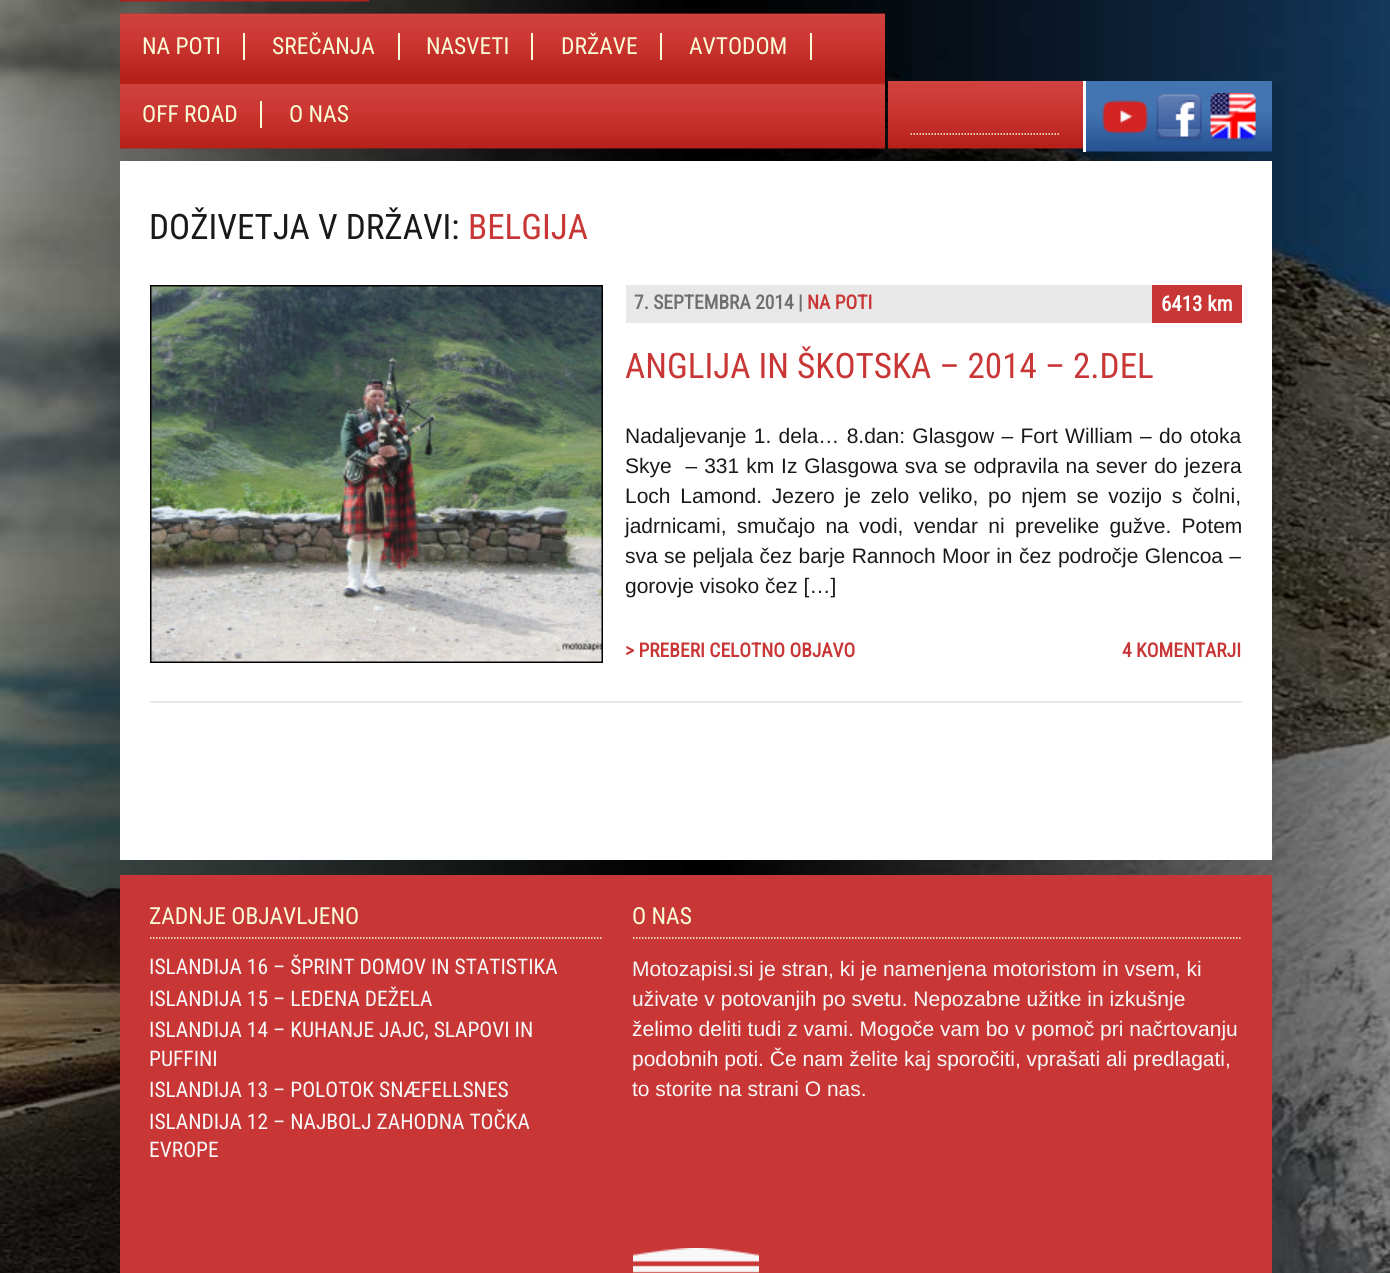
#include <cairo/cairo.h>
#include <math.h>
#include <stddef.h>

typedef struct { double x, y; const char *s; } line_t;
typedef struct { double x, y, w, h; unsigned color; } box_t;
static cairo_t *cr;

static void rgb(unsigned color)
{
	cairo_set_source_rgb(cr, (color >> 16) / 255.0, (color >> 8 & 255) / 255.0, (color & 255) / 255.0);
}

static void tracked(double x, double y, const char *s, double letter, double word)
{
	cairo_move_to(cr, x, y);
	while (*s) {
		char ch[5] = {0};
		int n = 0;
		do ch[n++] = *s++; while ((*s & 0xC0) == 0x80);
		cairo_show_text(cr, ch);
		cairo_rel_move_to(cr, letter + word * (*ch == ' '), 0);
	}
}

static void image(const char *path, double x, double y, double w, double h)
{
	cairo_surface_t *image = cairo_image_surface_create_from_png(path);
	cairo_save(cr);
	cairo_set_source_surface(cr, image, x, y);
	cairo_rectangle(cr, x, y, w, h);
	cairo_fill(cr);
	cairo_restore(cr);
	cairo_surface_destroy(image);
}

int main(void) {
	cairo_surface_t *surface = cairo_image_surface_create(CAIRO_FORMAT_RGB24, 1390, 1273);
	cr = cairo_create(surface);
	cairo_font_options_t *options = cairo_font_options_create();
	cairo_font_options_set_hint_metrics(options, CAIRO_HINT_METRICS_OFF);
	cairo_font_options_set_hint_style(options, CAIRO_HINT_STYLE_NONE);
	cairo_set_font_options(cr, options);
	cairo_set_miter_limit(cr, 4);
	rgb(0xffffff);
	cairo_paint(cr);
	image("img/1.png", 0, 0, 1390, 1273);
	image("img/2.png", 120, 0, 249, 2);
	image("img/3.png", 120, 13, 765, 136);
	{
		static const box_t items[] = {
			{243, 33, 2, 27, 0xf9fdd7},
			{398, 33, 2, 27, 0xf9fdd7},
			{531, 33, 2, 27, 0xf9fdd7},
			{660, 33, 2, 27, 0xf9fdd7},
			{810, 33, 2, 27, 0xf9fdd7},
			{260, 101, 2, 27, 0xf9fdd7},
		};
		for (size_t i = 0; i < sizeof items / sizeof *items; i++) {
			rgb(items[i].color);
			cairo_rectangle(cr, items[i].x, items[i].y, items[i].w, items[i].h);
			cairo_fill(cr);
		}
	}
	image("img/4.png", 888, 81, 195, 68);
	cairo_new_path(cr);
	cairo_move_to(cr, 910.5, 134);
	cairo_line_to(cr, 1060.5, 134);
	cairo_set_line_width(cr, 1.5);
	cairo_set_dash(cr, (double[]){1.5, 1.5}, 2, 0);
	cairo_stroke(cr);
	image("img/5.png", 1086, 81, 186, 71);
	rgb(0xffffff);
	cairo_rectangle(cr, 1083, 81, 3, 71);
	cairo_fill(cr);
	image("img/6.png", 1102, 100, 46, 34);
	image("img/7.png", 1156, 93, 46, 48);
	image("img/8.png", 1209, 93, 47, 48);
	cairo_rectangle(cr, 120, 161, 1152, 699);
	cairo_fill(cr);
	rgb(0xe8e8e8);
	cairo_rectangle(cr, 150, 701, 1092, 2);
	cairo_fill(cr);
	cairo_rectangle(cr, 151, 286, 451, 376);
	rgb(0x000000);
	cairo_set_line_width(cr, 2);
	cairo_set_dash(cr, NULL, 0, 0);
	cairo_stroke(cr);
	image("img/9.png", 151, 286, 451, 376);
	{
		static const box_t items[] = {
			{626, 285, 526, 38, 0xe8e8e8},
			{1152, 285, 90, 38, 0xc93636},
			{120, 875, 1152, 398, 0xc93636},
		};
		for (size_t i = 0; i < sizeof items / sizeof *items; i++) {
			rgb(items[i].color);
			cairo_rectangle(cr, items[i].x, items[i].y, items[i].w, items[i].h);
			cairo_fill(cr);
		}
	}
	cairo_new_path(cr);
	cairo_move_to(cr, 150, 938);
	cairo_line_to(cr, 603, 938);
	rgb(0xf9fdd7);
	cairo_set_line_width(cr, 1.5);
	cairo_set_dash(cr, (double[]){1.5, 1.5}, 2, 0);
	cairo_stroke(cr);
	cairo_new_path(cr);
	cairo_move_to(cr, 633, 938);
	cairo_line_to(cr, 1240.5, 938);
	cairo_stroke(cr);
	image("img/10.png", 633, 1248, 126, 25);
	cairo_select_font_face(cr, "Roboto Condensed", CAIRO_FONT_SLANT_NORMAL, CAIRO_FONT_WEIGHT_NORMAL);
	cairo_set_font_size(cr, 23.5);
	{
		static const line_t items[] = {
			{142, 54, "NA POTI"},
			{272, 54, "SREČANJA"},
			{426, 54, "NASVETI"},
			{561, 54, "DRŽAVE"},
			{689, 54, "AVTODOM"},
			{142, 122, "OFF ROAD"},
			{289, 122, "O NAS"},
		};
		for (size_t i = 0; i < sizeof items / sizeof *items; i++) {
			cairo_move_to(cr, items[i].x, items[i].y);
			cairo_show_text(cr, items[i].s);
		}
	}
	cairo_set_font_size(cr, 35.1);
	rgb(0x191919);
	cairo_move_to(cr, 149, 239);
	cairo_show_text(cr, "DOŽIVETJA V DRŽAVI:");
	rgb(0xc93636);
	cairo_move_to(cr, 468, 239);
	cairo_show_text(cr, "BELGIJA");
	cairo_select_font_face(cr, "Roboto Condensed", CAIRO_FONT_SLANT_NORMAL, CAIRO_FONT_WEIGHT_BOLD);
	cairo_set_font_size(cr, 19.5);
	rgb(0x706f6f);
	cairo_move_to(cr, 634, 309);
	cairo_show_text(cr, "7. SEPTEMBRA 2014 |");
	rgb(0xc93636);
	cairo_move_to(cr, 807, 309);
	cairo_show_text(cr, "NA POTI");
	cairo_set_font_size(cr, 21);
	rgb(0xffffff);
	cairo_move_to(cr, 1161, 311);
	cairo_show_text(cr, "6413 km");
	cairo_select_font_face(cr, "Roboto Condensed", CAIRO_FONT_SLANT_NORMAL, CAIRO_FONT_WEIGHT_NORMAL);
	cairo_set_font_size(cr, 35.1);
	rgb(0xc93636);
	cairo_move_to(cr, 625, 378);
	cairo_show_text(cr, "ANGLIJA IN ŠKOTSKA – 2014 – 2.DEL");
	cairo_select_font_face(cr, "Liberation Sans", CAIRO_FONT_SLANT_NORMAL, CAIRO_FONT_WEIGHT_NORMAL);
	cairo_set_font_size(cr, 21);
	rgb(0x191919);
	tracked(625, 443, "Nadaljevanje 1. dela… 8.dan: Glasgow – Fort William – do otoka", 0, 1.5);
	tracked(625, 473, "Skye  – 331 km Iz Glasgowa sva se odpravila na sever do jezera", 0, 1.1);
	tracked(625, 503, "Loch Lamond. Jezero je zelo veliko, po njem se vozijo s čolni,", 0, 3.9);
	tracked(625, 533, "jadrnicami, smučajo na vodi, vendar ni prevelike gužve. Potem", 0, 4.5);
	tracked(625, 563, "sva se peljala čez barje Rannoch Moor in čez področje Glencoa –", 0, 0.5);
	cairo_move_to(cr, 625, 593);
	cairo_show_text(cr, "gorovje visoko čez […]");
	cairo_select_font_face(cr, "Roboto Condensed", CAIRO_FONT_SLANT_NORMAL, CAIRO_FONT_WEIGHT_BOLD);
	cairo_set_font_size(cr, 19.5);
	rgb(0xc93636);
	cairo_move_to(cr, 625, 657);
	cairo_show_text(cr, "> PREBERI CELOTNO OBJAVO");
	cairo_move_to(cr, 1122, 657);
	cairo_show_text(cr, "4 KOMENTARJI");
	cairo_select_font_face(cr, "Roboto Condensed", CAIRO_FONT_SLANT_NORMAL, CAIRO_FONT_WEIGHT_NORMAL);
	cairo_set_font_size(cr, 23.5);
	rgb(0xf9fdd7);
	cairo_move_to(cr, 149, 924);
	cairo_show_text(cr, "ZADNJE OBJAVLJENO");
	cairo_set_font_size(cr, 21.5);
	rgb(0xf8f8f8);
	{
		static const line_t items[] = {
			{149, 974, "ISLANDIJA 16 – ŠPRINT DOMOV IN STATISTIKA"},
			{149, 1006, "ISLANDIJA 15 – LEDENA DEŽELA"},
			{149, 1037, "ISLANDIJA 14 – KUHANJE JAJC, SLAPOVI IN"},
			{149, 1066, "PUFFINI"},
			{149, 1097, "ISLANDIJA 13 – POLOTOK SNÆFELLSNES"},
			{149, 1129, "ISLANDIJA 12 – NAJBOLJ ZAHODNA TOČKA"},
			{149, 1157, "EVROPE"},
		};
		for (size_t i = 0; i < sizeof items / sizeof *items; i++) {
			cairo_move_to(cr, items[i].x, items[i].y);
			cairo_show_text(cr, items[i].s);
		}
	}
	cairo_set_font_size(cr, 23.5);
	rgb(0xf9fdd7);
	cairo_move_to(cr, 632, 924);
	cairo_show_text(cr, "O NAS");
	cairo_select_font_face(cr, "Liberation Sans", CAIRO_FONT_SLANT_NORMAL, CAIRO_FONT_WEIGHT_NORMAL);
	cairo_set_font_size(cr, 21);
	rgb(0xf8f8f8);
	{
		static const line_t items[] = {
			{632, 976, "Motozapisi.si je stran, ki je namenjena motoristom in vsem, ki"},
			{632, 1006, "uživate v potovanjih po svetu. Nepozabne užitke in izkušnje"},
			{632, 1036, "želimo deliti tudi z vami. Mogoče vam bo v pomoč pri načrtovanju"},
			{632, 1066, "podobnih poti. Če nam želite kaj sporočiti, vprašati ali predlagati,"},
			{632, 1096, "to storite na strani O nas."},
		};
		for (size_t i = 0; i < sizeof items / sizeof *items; i++) {
			cairo_move_to(cr, items[i].x, items[i].y);
			cairo_show_text(cr, items[i].s);
		}
	}
	cairo_surface_write_to_png(surface, "page.png");
	cairo_font_options_destroy(options);
	cairo_destroy(cr);
	cairo_surface_destroy(surface);
	return 0;
}
